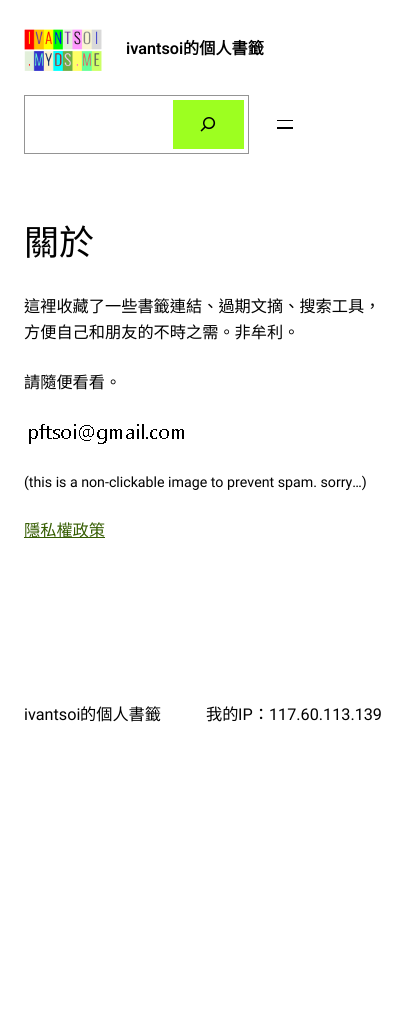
#include <cairo/cairo.h>
#include <math.h>
#include <stddef.h>

typedef struct { double x, y; const char *s; } line_t;
static cairo_t *cr;

static void rgb(unsigned color)
{
	cairo_set_source_rgb(cr, (color >> 16) / 255.0, (color >> 8 & 255) / 255.0, (color & 255) / 255.0);
}

static void image(const char *path, double x, double y, double w, double h)
{
	cairo_surface_t *image = cairo_image_surface_create_from_png(path);
	cairo_save(cr);
	cairo_set_source_surface(cr, image, x, y);
	cairo_rectangle(cr, x, y, w, h);
	cairo_fill(cr);
	cairo_restore(cr);
	cairo_surface_destroy(image);
}

int main(void) {
	cairo_surface_t *surface = cairo_image_surface_create(CAIRO_FORMAT_RGB24, 406, 1019);
	cr = cairo_create(surface);
	cairo_font_options_t *options = cairo_font_options_create();
	cairo_font_options_set_hint_metrics(options, CAIRO_HINT_METRICS_OFF);
	cairo_font_options_set_hint_style(options, CAIRO_HINT_STYLE_NONE);
	cairo_set_font_options(cr, options);
	cairo_set_miter_limit(cr, 4);
	rgb(0xffffff);
	cairo_paint(cr);
	image("img/1.png", 24, 29, 78, 42);
	cairo_rectangle(cr, 24.5, 95.5, 224, 58);
	rgb(0x949494);
	cairo_set_line_width(cr, 1);
	cairo_stroke(cr);
	rgb(0x9dff20);
	cairo_rectangle(cr, 173, 100, 71, 49);
	cairo_fill(cr);
	image("img/2.png", 200, 117, 16, 15);
	rgb(0x000000);
	cairo_rectangle(cr, 277, 120, 16, 1);
	cairo_fill(cr);
	cairo_rectangle(cr, 277, 127, 16, 2);
	cairo_fill(cr);
	image("img/3.png", 29, 424, 155, 20);
	rgb(0x345c00);
	cairo_rectangle(cr, 24, 537, 81, 1);
	cairo_fill(cr);
	cairo_select_font_face(cr, "Roboto SemiBold", CAIRO_FONT_SLANT_NORMAL, CAIRO_FONT_WEIGHT_NORMAL);
	cairo_set_font_size(cr, 16.2);
	rgb(0x000000);
	cairo_move_to(cr, 126, 54);
	cairo_show_text(cr, "ivantsoi");
	cairo_select_font_face(cr, "Noto Sans CJK TC", CAIRO_FONT_SLANT_NORMAL, CAIRO_FONT_WEIGHT_BOLD);
	cairo_move_to(cr, 183, 54);
	cairo_show_text(cr, "的個人書籤");
	cairo_select_font_face(cr, "Noto Sans CJK TC", CAIRO_FONT_SLANT_NORMAL, CAIRO_FONT_WEIGHT_NORMAL);
	cairo_set_font_size(cr, 35);
	cairo_move_to(cr, 24, 255);
	cairo_show_text(cr, "關於");
	cairo_set_font_size(cr, 16.2);
	{
		static const line_t items[] = {
			{24, 312, "這裡收藏了一些書籤連結、過期文摘、搜索工具，"},
			{24, 338, "方便自己和朋友的不時之需。非牟利。"},
			{24, 388, "請隨便看看。"},
		};
		for (size_t i = 0; i < sizeof items / sizeof *items; i++) {
			cairo_move_to(cr, items[i].x, items[i].y);
			cairo_show_text(cr, items[i].s);
		}
	}
	cairo_select_font_face(cr, "Roboto", CAIRO_FONT_SLANT_NORMAL, CAIRO_FONT_WEIGHT_NORMAL);
	cairo_set_font_size(cr, 14.2);
	cairo_move_to(cr, 24, 487);
	cairo_show_text(cr, "(this is a non-clickable image to prevent spam. sorry…)");
	cairo_select_font_face(cr, "Noto Sans CJK TC", CAIRO_FONT_SLANT_NORMAL, CAIRO_FONT_WEIGHT_NORMAL);
	cairo_set_font_size(cr, 16.2);
	rgb(0x345c00);
	cairo_move_to(cr, 24, 536);
	cairo_show_text(cr, "隱私權政策");
	cairo_select_font_face(cr, "Roboto", CAIRO_FONT_SLANT_NORMAL, CAIRO_FONT_WEIGHT_NORMAL);
	rgb(0x000000);
	cairo_move_to(cr, 24, 720);
	cairo_show_text(cr, "ivantsoi");
	cairo_select_font_face(cr, "Noto Sans CJK TC", CAIRO_FONT_SLANT_NORMAL, CAIRO_FONT_WEIGHT_NORMAL);
	cairo_move_to(cr, 80, 720);
	cairo_show_text(cr, "的個人書籤");
	cairo_move_to(cr, 206, 720);
	cairo_show_text(cr, "我的");
	cairo_select_font_face(cr, "Roboto", CAIRO_FONT_SLANT_NORMAL, CAIRO_FONT_WEIGHT_NORMAL);
	cairo_move_to(cr, 238, 720);
	cairo_show_text(cr, "IP");
	cairo_select_font_face(cr, "Noto Sans CJK TC", CAIRO_FONT_SLANT_NORMAL, CAIRO_FONT_WEIGHT_NORMAL);
	cairo_move_to(cr, 253, 720);
	cairo_show_text(cr, "：");
	cairo_select_font_face(cr, "Roboto", CAIRO_FONT_SLANT_NORMAL, CAIRO_FONT_WEIGHT_NORMAL);
	cairo_move_to(cr, 269, 720);
	cairo_show_text(cr, "117.60.113.139");
	cairo_surface_write_to_png(surface, "page.png");
	cairo_font_options_destroy(options);
	cairo_destroy(cr);
	cairo_surface_destroy(surface);
	return 0;
}
